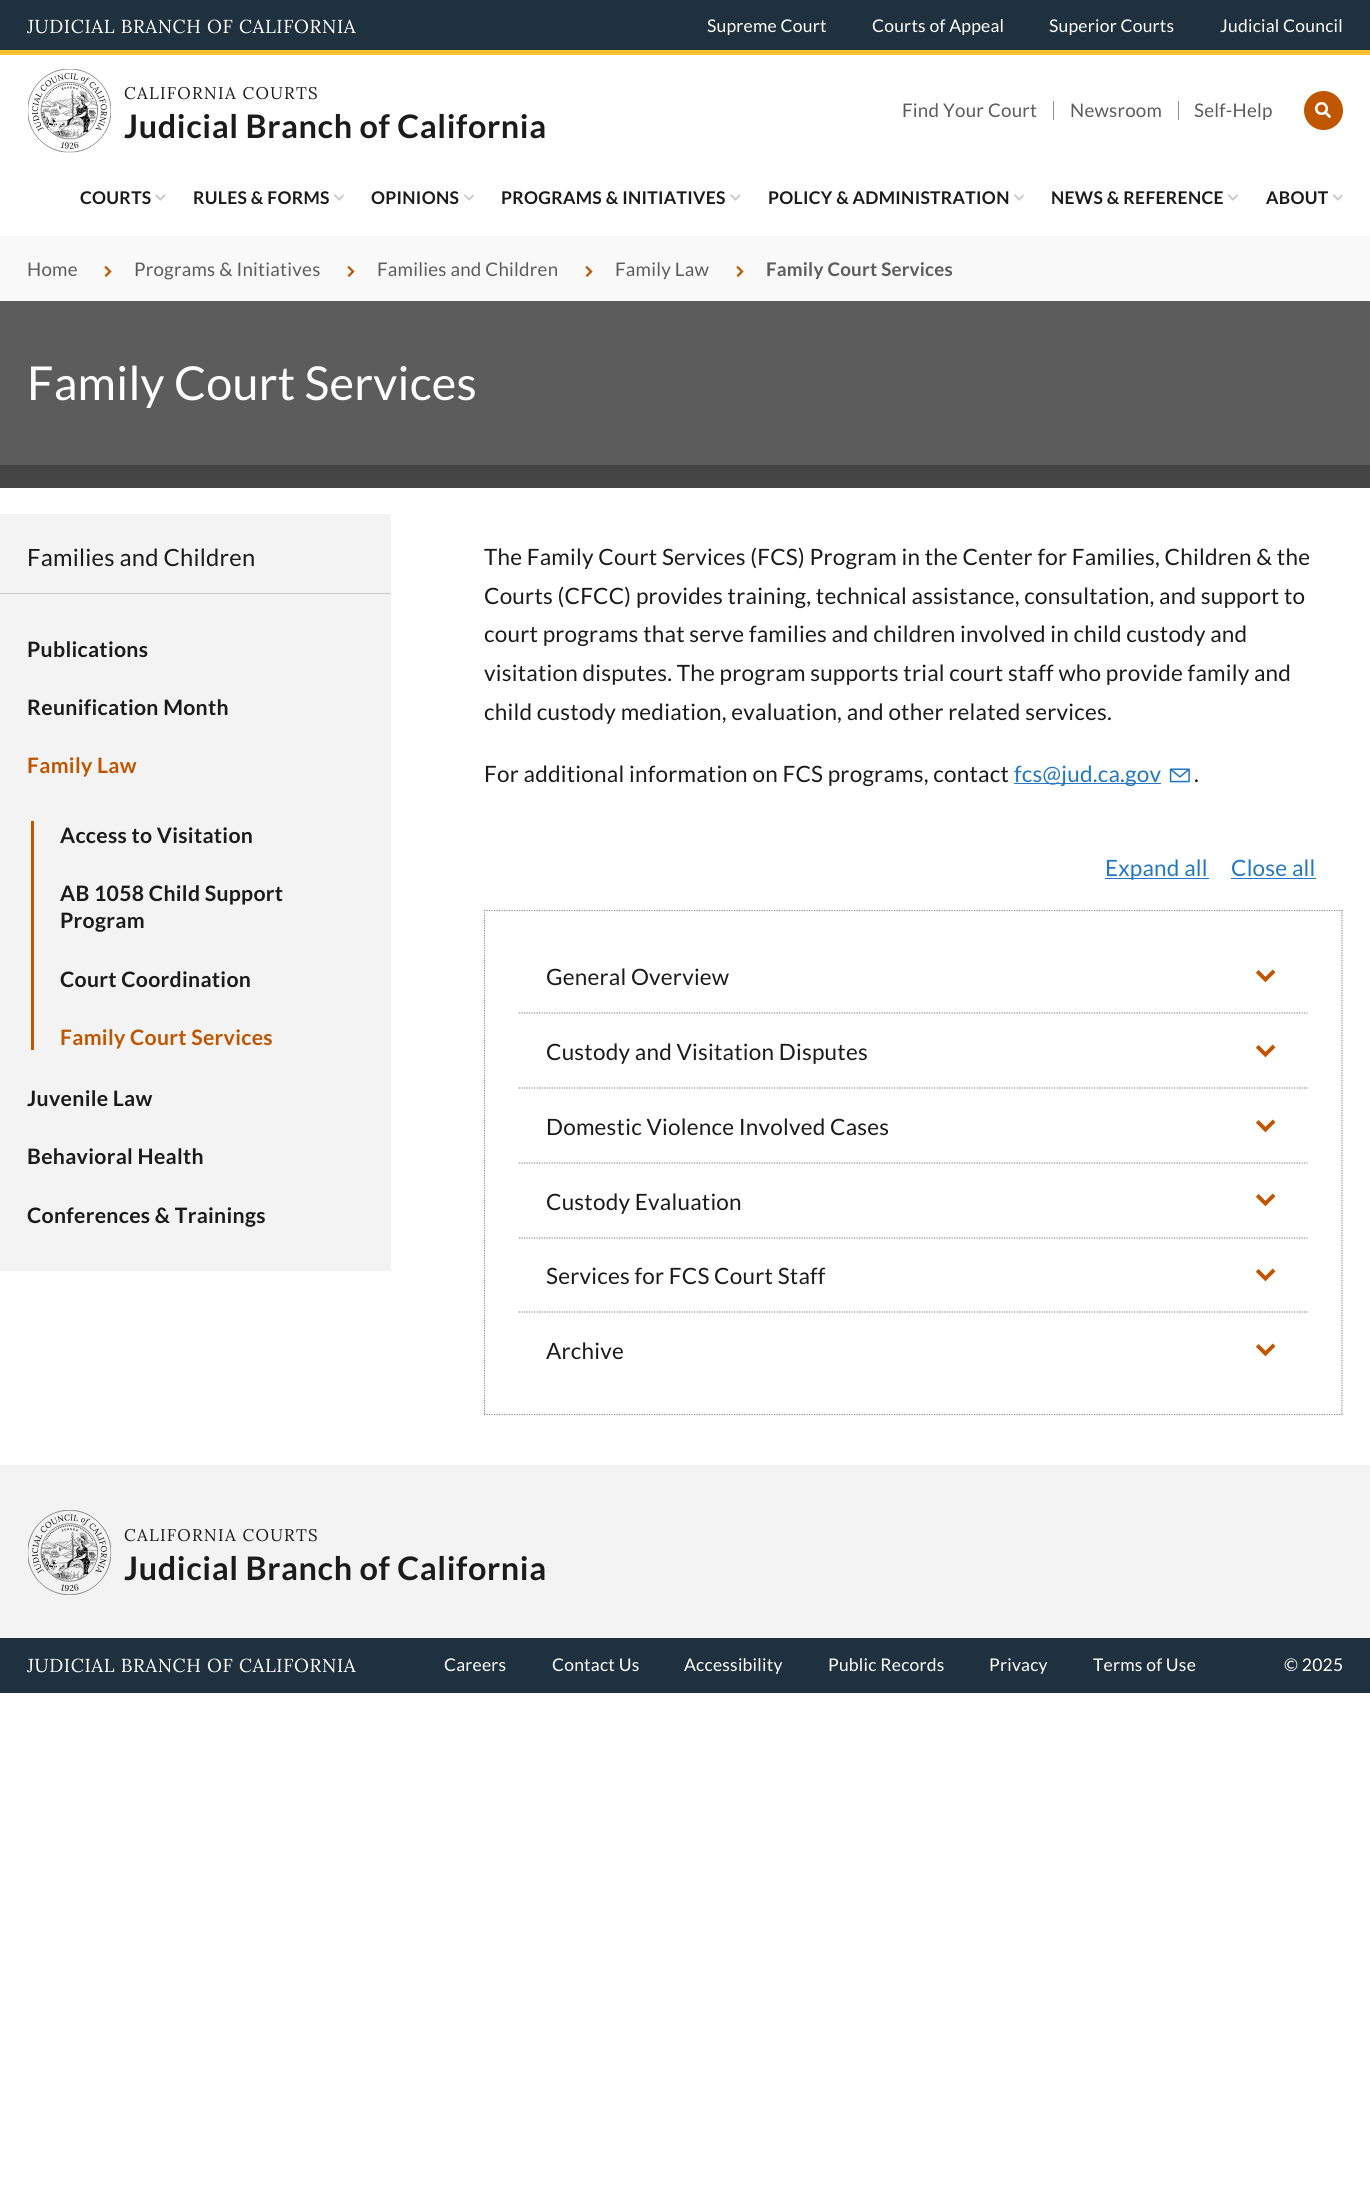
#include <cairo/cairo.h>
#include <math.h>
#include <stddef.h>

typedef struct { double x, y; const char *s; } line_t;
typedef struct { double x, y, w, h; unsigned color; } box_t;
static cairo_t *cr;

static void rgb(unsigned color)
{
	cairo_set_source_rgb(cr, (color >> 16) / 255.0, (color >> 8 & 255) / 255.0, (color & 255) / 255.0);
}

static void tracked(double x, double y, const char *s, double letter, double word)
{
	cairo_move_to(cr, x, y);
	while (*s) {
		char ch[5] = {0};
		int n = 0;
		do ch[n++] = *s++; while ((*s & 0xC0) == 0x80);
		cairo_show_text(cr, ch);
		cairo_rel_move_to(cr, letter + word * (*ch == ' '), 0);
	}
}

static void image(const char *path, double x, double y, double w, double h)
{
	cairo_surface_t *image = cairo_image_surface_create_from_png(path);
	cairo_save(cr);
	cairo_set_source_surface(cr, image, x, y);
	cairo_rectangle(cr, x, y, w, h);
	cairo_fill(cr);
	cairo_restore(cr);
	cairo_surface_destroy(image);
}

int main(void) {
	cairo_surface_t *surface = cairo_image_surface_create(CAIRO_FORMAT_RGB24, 1370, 2207);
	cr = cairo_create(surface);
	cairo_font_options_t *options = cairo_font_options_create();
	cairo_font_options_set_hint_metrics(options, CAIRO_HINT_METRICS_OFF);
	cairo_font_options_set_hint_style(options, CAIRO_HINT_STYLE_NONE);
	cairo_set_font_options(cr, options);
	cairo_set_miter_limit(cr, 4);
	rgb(0xffffff);
	cairo_paint(cr);
	rgb(0x1f303e);
	cairo_rectangle(cr, 0, 0, 1370, 50);
	cairo_fill(cr);
	rgb(0xffbe2e);
	cairo_rectangle(cr, 0, 50, 1370, 5);
	cairo_fill(cr);
	image("img/1.png", 28, 69, 83, 84);
	rgb(0x919191);
	cairo_rectangle(cr, 1053, 101, 1, 19);
	cairo_fill(cr);
	cairo_rectangle(cr, 1178, 101, 1, 19);
	cairo_fill(cr);
	rgb(0xc05600);
	cairo_arc(cr, 1323.5, 110.5, 19.5, 0, 2 * M_PI);
	cairo_fill(cr);
	image("img/2.png", 1315, 102, 16, 16);
	image("img/3.png", 155, 194, 11, 7);
	image("img/4.png", 334, 194, 10, 7);
	image("img/4.png", 464, 194, 10, 7);
	image("img/3.png", 730, 194, 11, 7);
	image("img/5.png", 1014, 194, 10, 7);
	image("img/6.png", 1228, 194, 10, 7);
	image("img/7.png", 1333, 194, 10, 7);
	{
		static const box_t items[] = {
			{0, 236, 1370, 65, 0xf9f9f9},
			{0, 301, 1370, 164, 0x5c5c5c},
			{0, 465, 1370, 23, 0x454545},
			{0, 514, 391, 757, 0xf3f3f3},
			{0, 593, 391, 1, 0xc9c9c9},
			{31, 821, 3, 229, 0xc05600},
			{1014, 783, 147, 1, 0x2378c3},
		};
		for (size_t i = 0; i < sizeof items / sizeof *items; i++) {
			rgb(items[i].color);
			cairo_rectangle(cr, items[i].x, items[i].y, items[i].w, items[i].h);
			cairo_fill(cr);
		}
	}
	image("img/8.png", 1169, 768, 21, 15);
	cairo_rectangle(cr, 1105, 878, 104, 1);
	cairo_fill(cr);
	cairo_rectangle(cr, 1231, 878, 85, 1);
	cairo_fill(cr);
	cairo_new_path(cr);
	cairo_move_to(cr, 484, 910.5);
	cairo_line_to(cr, 1342.5, 910.5);
	rgb(0x919191);
	cairo_set_line_width(cr, 1.2);
	cairo_set_dash(cr, (double[]){1.25, 1.25}, 2, 0);
	cairo_stroke(cr);
	cairo_new_path(cr);
	cairo_move_to(cr, 1342, 910);
	cairo_line_to(cr, 1342, 1415);
	cairo_stroke(cr);
	cairo_new_path(cr);
	cairo_move_to(cr, 484, 1414.5);
	cairo_line_to(cr, 1342.5, 1414.5);
	cairo_stroke(cr);
	cairo_new_path(cr);
	cairo_move_to(cr, 484.5, 910);
	cairo_line_to(cr, 484.5, 1415);
	cairo_stroke(cr);
	cairo_new_path(cr);
	cairo_move_to(cr, 519, 1013);
	cairo_line_to(cr, 1307.5, 1013);
	cairo_stroke(cr);
	cairo_new_path(cr);
	cairo_move_to(cr, 519, 1088);
	cairo_line_to(cr, 1307.5, 1088);
	cairo_stroke(cr);
	cairo_new_path(cr);
	cairo_move_to(cr, 519, 1163);
	cairo_line_to(cr, 1307.5, 1163);
	cairo_stroke(cr);
	cairo_new_path(cr);
	cairo_move_to(cr, 519, 1238);
	cairo_line_to(cr, 1307.5, 1238);
	cairo_stroke(cr);
	cairo_new_path(cr);
	cairo_move_to(cr, 519, 1312);
	cairo_line_to(cr, 1307.5, 1312);
	cairo_stroke(cr);
	rgb(0xf3f3f3);
	cairo_rectangle(cr, 0, 1465, 1370, 173);
	cairo_fill(cr);
	image("img/9.png", 28, 1510, 83, 85);
	rgb(0x1f303e);
	cairo_rectangle(cr, 0, 1638, 1370, 55);
	cairo_fill(cr);
	cairo_select_font_face(cr, "Lora", CAIRO_FONT_SLANT_NORMAL, CAIRO_FONT_WEIGHT_NORMAL);
	cairo_set_font_size(cr, 18.75);
	rgb(0xffffff);
	tracked(27, 33, "JUDICIAL BRANCH OF CALIFORNIA", 0.6, 0);
	cairo_select_font_face(cr, "Lato", CAIRO_FONT_SLANT_NORMAL, CAIRO_FONT_WEIGHT_NORMAL);
	cairo_set_font_size(cr, 17.5);
	{
		static const line_t items[] = {
			{707, 32, "Supreme Court"},
			{872, 32, "Courts of Appeal"},
			{1049, 32, "Superior Courts"},
			{1220, 32, "Judicial Council"},
		};
		for (size_t i = 0; i < sizeof items / sizeof *items; i++) {
			tracked(items[i].x, items[i].y, items[i].s, 0.22, 0);
		}
	}
	cairo_select_font_face(cr, "Lora", CAIRO_FONT_SLANT_NORMAL, CAIRO_FONT_WEIGHT_NORMAL);
	cairo_set_font_size(cr, 16.9);
	rgb(0x1b1b1b);
	tracked(124, 99, "CALIFORNIA COURTS", 1.25, 0);
	cairo_select_font_face(cr, "Lato", CAIRO_FONT_SLANT_NORMAL, CAIRO_FONT_WEIGHT_BOLD);
	cairo_set_font_size(cr, 32.4);
	tracked(124, 138, "Judicial Branch of California", 0.6, 0);
	cairo_select_font_face(cr, "Lato", CAIRO_FONT_SLANT_NORMAL, CAIRO_FONT_WEIGHT_NORMAL);
	cairo_set_font_size(cr, 18.75);
	rgb(0x5c5c5c);
	tracked(902, 117, "Find Your Court", 0.22, 0);
	tracked(1070, 117, "Newsroom", 0.22, 0);
	cairo_save(cr);
	cairo_rectangle(cr, 886, 101, 403, 19);
	cairo_clip(cr);
	tracked(1194, 117, "Self-Help", 0.22, 0);
	cairo_restore(cr);
	cairo_select_font_face(cr, "Lato", CAIRO_FONT_SLANT_NORMAL, CAIRO_FONT_WEIGHT_BOLD);
	cairo_set_font_size(cr, 17.5);
	rgb(0x1b1b1b);
	{
		static const line_t items[] = {
			{80, 204, "COURTS"},
			{193, 204, "RULES & FORMS"},
			{371, 204, "OPINIONS"},
			{501, 204, "PROGRAMS & INITIATIVES"},
			{768, 204, "POLICY & ADMINISTRATION"},
			{1051, 204, "NEWS & REFERENCE"},
			{1266, 204, "ABOUT"},
		};
		for (size_t i = 0; i < sizeof items / sizeof *items; i++) {
			tracked(items[i].x, items[i].y, items[i].s, 0.3, 0);
		}
	}
	cairo_select_font_face(cr, "Lato", CAIRO_FONT_SLANT_NORMAL, CAIRO_FONT_WEIGHT_NORMAL);
	cairo_set_font_size(cr, 18.75);
	rgb(0x5c5c5c);
	tracked(27, 276, "Home", 0.22, 0);
	cairo_select_font_face(cr, "DejaVu Sans", CAIRO_FONT_SLANT_NORMAL, CAIRO_FONT_WEIGHT_BOLD);
	cairo_set_font_size(cr, 22.5);
	rgb(0xc05600);
	cairo_save(cr);
	cairo_translate(cr, 104, 277);
	cairo_rotate(cr, -45 * M_PI / 180);
	cairo_move_to(cr, 0, 0);
	cairo_show_text(cr, "⌟");
	cairo_restore(cr);
	cairo_select_font_face(cr, "Lato", CAIRO_FONT_SLANT_NORMAL, CAIRO_FONT_WEIGHT_NORMAL);
	cairo_set_font_size(cr, 18.75);
	rgb(0x5c5c5c);
	tracked(134, 276, "Programs & Initiatives", 0.22, 0);
	cairo_select_font_face(cr, "DejaVu Sans", CAIRO_FONT_SLANT_NORMAL, CAIRO_FONT_WEIGHT_BOLD);
	cairo_set_font_size(cr, 22.5);
	rgb(0xc05600);
	cairo_save(cr);
	cairo_translate(cr, 347, 277);
	cairo_rotate(cr, -45 * M_PI / 180);
	cairo_move_to(cr, 0, 0);
	cairo_show_text(cr, "⌟");
	cairo_restore(cr);
	cairo_select_font_face(cr, "Lato", CAIRO_FONT_SLANT_NORMAL, CAIRO_FONT_WEIGHT_NORMAL);
	cairo_set_font_size(cr, 18.75);
	rgb(0x5c5c5c);
	tracked(377, 276, "Families and Children", 0.22, 0);
	cairo_select_font_face(cr, "DejaVu Sans", CAIRO_FONT_SLANT_NORMAL, CAIRO_FONT_WEIGHT_BOLD);
	cairo_set_font_size(cr, 22.5);
	rgb(0xc05600);
	cairo_save(cr);
	cairo_translate(cr, 585, 277);
	cairo_rotate(cr, -45 * M_PI / 180);
	cairo_move_to(cr, 0, 0);
	cairo_show_text(cr, "⌟");
	cairo_restore(cr);
	cairo_select_font_face(cr, "Lato", CAIRO_FONT_SLANT_NORMAL, CAIRO_FONT_WEIGHT_NORMAL);
	cairo_set_font_size(cr, 18.75);
	rgb(0x5c5c5c);
	tracked(615, 276, "Family Law", 0.22, 0);
	cairo_select_font_face(cr, "DejaVu Sans", CAIRO_FONT_SLANT_NORMAL, CAIRO_FONT_WEIGHT_BOLD);
	cairo_set_font_size(cr, 22.5);
	rgb(0xc05600);
	cairo_save(cr);
	cairo_translate(cr, 736, 277);
	cairo_rotate(cr, -45 * M_PI / 180);
	cairo_move_to(cr, 0, 0);
	cairo_show_text(cr, "⌟");
	cairo_restore(cr);
	cairo_select_font_face(cr, "Lato", CAIRO_FONT_SLANT_NORMAL, CAIRO_FONT_WEIGHT_BOLD);
	cairo_set_font_size(cr, 18.75);
	rgb(0x5c5c5c);
	tracked(766, 276, "Family Court Services", 0.22, 0);
	cairo_select_font_face(cr, "Lato", CAIRO_FONT_SLANT_NORMAL, CAIRO_FONT_WEIGHT_NORMAL);
	cairo_set_font_size(cr, 46.75);
	rgb(0xffffff);
	tracked(27, 400, "Family Court Services", 0.22, 0);
	cairo_set_font_size(cr, 23.75);
	rgb(0x1b1b1b);
	tracked(27, 566, "Families and Children", 0.22, 0);
	cairo_select_font_face(cr, "Lato", CAIRO_FONT_SLANT_NORMAL, CAIRO_FONT_WEIGHT_BOLD);
	cairo_set_font_size(cr, 21.25);
	tracked(27, 657, "Publications", 0.3, 0);
	tracked(27, 715, "Reunification Month", 0.3, 0);
	rgb(0xc05600);
	tracked(27, 773, "Family Law", 0.3, 0);
	rgb(0x1b1b1b);
	{
		static const line_t items[] = {
			{60, 843, "Access to Visitation"},
			{60, 901, "AB 1058 Child Support"},
			{60, 928, "Program"},
			{60, 987, "Court Coordination"},
		};
		for (size_t i = 0; i < sizeof items / sizeof *items; i++) {
			tracked(items[i].x, items[i].y, items[i].s, 0.3, 0);
		}
	}
	rgb(0xc05600);
	tracked(60, 1045, "Family Court Services", 0.3, 0);
	rgb(0x1b1b1b);
	{
		static const line_t items[] = {
			{27, 1106, "Juvenile Law"},
			{27, 1164, "Behavioral Health"},
			{27, 1223, "Conferences & Trainings"},
		};
		for (size_t i = 0; i < sizeof items / sizeof *items; i++) {
			tracked(items[i].x, items[i].y, items[i].s, 0.3, 0);
		}
	}
	cairo_select_font_face(cr, "Lato", CAIRO_FONT_SLANT_NORMAL, CAIRO_FONT_WEIGHT_NORMAL);
	cairo_set_font_size(cr, 22.5);
	{
		static const line_t items[] = {
			{484, 565, "The Family Court Services (FCS) Program in the Center for Families, Children & the"},
			{484, 604, "Courts (CFCC) provides training, technical assistance, consultation, and support to"},
			{484, 642, "court programs that serve families and children involved in child custody and"},
			{484, 681, "visitation disputes. The program supports trial court staff who provide family and"},
			{484, 720, "child custody mediation, evaluation, and other related services."},
			{484, 782, "For additional information on FCS programs, contact"},
		};
		for (size_t i = 0; i < sizeof items / sizeof *items; i++) {
			tracked(items[i].x, items[i].y, items[i].s, 0.22, 0);
		}
	}
	rgb(0x2378c3);
	tracked(1014, 782, "fcs@jud.ca.gov", 0.22, 0);
	rgb(0x1b1b1b);
	tracked(1194, 782, ".", 0.22, 0);
	rgb(0x2378c3);
	tracked(1105, 876, "Expand all", 0.22, 0);
	tracked(1231, 876, "Close all", 0.22, 0);
	rgb(0x1b1b1b);
	tracked(546, 985, "General Overview", 0.22, 0);
	cairo_select_font_face(cr, "DejaVu Sans", CAIRO_FONT_SLANT_NORMAL, CAIRO_FONT_WEIGHT_BOLD);
	cairo_set_font_size(cr, 39);
	rgb(0xc05600);
	cairo_save(cr);
	cairo_translate(cr, 1256, 969);
	cairo_rotate(cr, 45 * M_PI / 180);
	cairo_move_to(cr, 0, 0);
	cairo_show_text(cr, "⌟");
	cairo_restore(cr);
	cairo_select_font_face(cr, "Lato", CAIRO_FONT_SLANT_NORMAL, CAIRO_FONT_WEIGHT_NORMAL);
	cairo_set_font_size(cr, 22.5);
	rgb(0x1b1b1b);
	tracked(546, 1060, "Custody and Visitation Disputes", 0.22, 0);
	cairo_select_font_face(cr, "DejaVu Sans", CAIRO_FONT_SLANT_NORMAL, CAIRO_FONT_WEIGHT_BOLD);
	cairo_set_font_size(cr, 39);
	rgb(0xc05600);
	cairo_save(cr);
	cairo_translate(cr, 1256, 1044);
	cairo_rotate(cr, 45 * M_PI / 180);
	cairo_move_to(cr, 0, 0);
	cairo_show_text(cr, "⌟");
	cairo_restore(cr);
	cairo_select_font_face(cr, "Lato", CAIRO_FONT_SLANT_NORMAL, CAIRO_FONT_WEIGHT_NORMAL);
	cairo_set_font_size(cr, 22.5);
	rgb(0x1b1b1b);
	tracked(546, 1135, "Domestic Violence Involved Cases", 0.22, 0);
	cairo_select_font_face(cr, "DejaVu Sans", CAIRO_FONT_SLANT_NORMAL, CAIRO_FONT_WEIGHT_BOLD);
	cairo_set_font_size(cr, 39);
	rgb(0xc05600);
	cairo_save(cr);
	cairo_translate(cr, 1256, 1119);
	cairo_rotate(cr, 45 * M_PI / 180);
	cairo_move_to(cr, 0, 0);
	cairo_show_text(cr, "⌟");
	cairo_restore(cr);
	cairo_select_font_face(cr, "Lato", CAIRO_FONT_SLANT_NORMAL, CAIRO_FONT_WEIGHT_NORMAL);
	cairo_set_font_size(cr, 22.5);
	rgb(0x1b1b1b);
	tracked(546, 1210, "Custody Evaluation", 0.22, 0);
	cairo_select_font_face(cr, "DejaVu Sans", CAIRO_FONT_SLANT_NORMAL, CAIRO_FONT_WEIGHT_BOLD);
	cairo_set_font_size(cr, 39);
	rgb(0xc05600);
	cairo_save(cr);
	cairo_translate(cr, 1256, 1193);
	cairo_rotate(cr, 45 * M_PI / 180);
	cairo_move_to(cr, 0, 0);
	cairo_show_text(cr, "⌟");
	cairo_restore(cr);
	cairo_select_font_face(cr, "Lato", CAIRO_FONT_SLANT_NORMAL, CAIRO_FONT_WEIGHT_NORMAL);
	cairo_set_font_size(cr, 22.5);
	rgb(0x1b1b1b);
	tracked(546, 1284, "Services for FCS Court Staff", 0.22, 0);
	cairo_select_font_face(cr, "DejaVu Sans", CAIRO_FONT_SLANT_NORMAL, CAIRO_FONT_WEIGHT_BOLD);
	cairo_set_font_size(cr, 39);
	rgb(0xc05600);
	cairo_save(cr);
	cairo_translate(cr, 1256, 1268);
	cairo_rotate(cr, 45 * M_PI / 180);
	cairo_move_to(cr, 0, 0);
	cairo_show_text(cr, "⌟");
	cairo_restore(cr);
	cairo_select_font_face(cr, "Lato", CAIRO_FONT_SLANT_NORMAL, CAIRO_FONT_WEIGHT_NORMAL);
	cairo_set_font_size(cr, 22.5);
	rgb(0x1b1b1b);
	tracked(546, 1359, "Archive", 0.22, 0);
	cairo_select_font_face(cr, "DejaVu Sans", CAIRO_FONT_SLANT_NORMAL, CAIRO_FONT_WEIGHT_BOLD);
	cairo_set_font_size(cr, 39);
	rgb(0xc05600);
	cairo_save(cr);
	cairo_translate(cr, 1256, 1343);
	cairo_rotate(cr, 45 * M_PI / 180);
	cairo_move_to(cr, 0, 0);
	cairo_show_text(cr, "⌟");
	cairo_restore(cr);
	cairo_select_font_face(cr, "Lora", CAIRO_FONT_SLANT_NORMAL, CAIRO_FONT_WEIGHT_NORMAL);
	cairo_set_font_size(cr, 16.9);
	rgb(0x1b1b1b);
	tracked(124, 1541, "CALIFORNIA COURTS", 1.25, 0);
	cairo_select_font_face(cr, "Lato", CAIRO_FONT_SLANT_NORMAL, CAIRO_FONT_WEIGHT_BOLD);
	cairo_set_font_size(cr, 32.4);
	tracked(124, 1580, "Judicial Branch of California", 0.6, 0);
	cairo_select_font_face(cr, "Lora", CAIRO_FONT_SLANT_NORMAL, CAIRO_FONT_WEIGHT_NORMAL);
	cairo_set_font_size(cr, 18.75);
	rgb(0xffffff);
	tracked(27, 1672, "JUDICIAL BRANCH OF CALIFORNIA", 0.6, 0);
	cairo_select_font_face(cr, "Lato", CAIRO_FONT_SLANT_NORMAL, CAIRO_FONT_WEIGHT_NORMAL);
	cairo_set_font_size(cr, 17.5);
	{
		static const line_t items[] = {
			{444, 1671, "Careers"},
			{552, 1671, "Contact Us"},
			{684, 1671, "Accessibility"},
			{828, 1671, "Public Records"},
			{989, 1671, "Privacy"},
			{1093, 1671, "Terms of Use"},
			{1284, 1671, "© 2025"},
		};
		for (size_t i = 0; i < sizeof items / sizeof *items; i++) {
			tracked(items[i].x, items[i].y, items[i].s, 0.22, 0);
		}
	}
	cairo_surface_write_to_png(surface, "page.png");
	cairo_font_options_destroy(options);
	cairo_destroy(cr);
	cairo_surface_destroy(surface);
	return 0;
}
